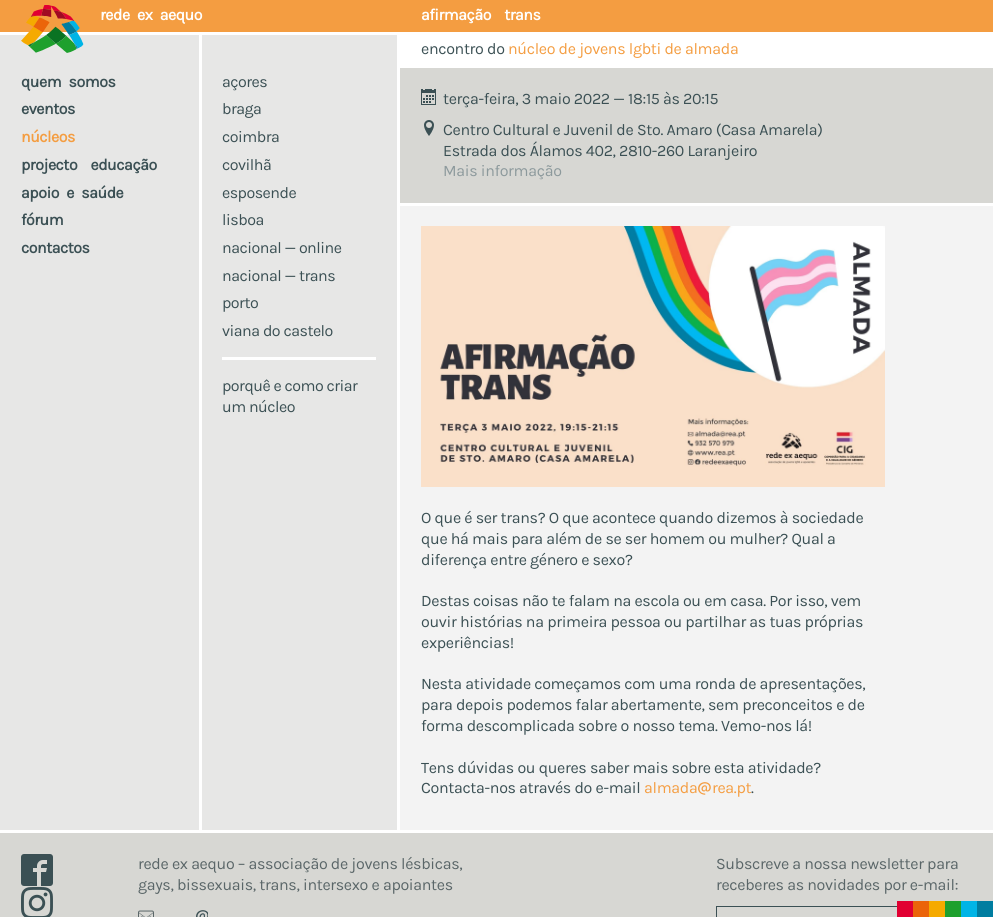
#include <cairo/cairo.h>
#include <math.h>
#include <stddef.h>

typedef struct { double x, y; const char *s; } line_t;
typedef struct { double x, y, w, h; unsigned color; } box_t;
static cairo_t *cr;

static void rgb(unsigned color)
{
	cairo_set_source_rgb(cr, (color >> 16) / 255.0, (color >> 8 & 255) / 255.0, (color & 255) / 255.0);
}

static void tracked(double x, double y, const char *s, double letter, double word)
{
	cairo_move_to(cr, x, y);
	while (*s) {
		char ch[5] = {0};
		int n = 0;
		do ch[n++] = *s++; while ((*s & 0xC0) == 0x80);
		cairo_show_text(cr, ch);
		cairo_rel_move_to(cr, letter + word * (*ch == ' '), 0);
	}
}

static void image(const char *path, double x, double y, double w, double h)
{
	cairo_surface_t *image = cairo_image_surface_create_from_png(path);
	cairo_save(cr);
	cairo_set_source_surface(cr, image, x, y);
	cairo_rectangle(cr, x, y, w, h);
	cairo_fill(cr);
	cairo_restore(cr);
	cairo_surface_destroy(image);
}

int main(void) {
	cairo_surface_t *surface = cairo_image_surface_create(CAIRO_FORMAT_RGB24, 993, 917);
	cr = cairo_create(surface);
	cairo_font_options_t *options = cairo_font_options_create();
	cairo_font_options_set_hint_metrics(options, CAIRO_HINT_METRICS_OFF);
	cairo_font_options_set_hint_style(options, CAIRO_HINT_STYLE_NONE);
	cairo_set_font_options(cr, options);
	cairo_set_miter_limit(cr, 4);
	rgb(0xe7e7e6);
	cairo_paint(cr);
	{
		static const box_t items[] = {
			{397, 31, 3, 799, 0xffffff},
			{0, 0, 993, 32, 0xf49d41},
			{199, 34, 3, 796, 0xffffff},
			{0, 32, 993, 3, 0xffffff},
		};
		for (size_t i = 0; i < sizeof items / sizeof *items; i++) {
			rgb(items[i].color);
			cairo_rectangle(cr, items[i].x, items[i].y, items[i].w, items[i].h);
			cairo_fill(cr);
		}
	}
	image("img/1.png", 21, 5, 63, 48);
	{
		static const box_t items[] = {
			{222, 357, 154, 3, 0xffffff},
			{400, 35, 593, 33, 0xffffff},
			{400, 68, 593, 135, 0xd7d7d3},
		};
		for (size_t i = 0; i < sizeof items / sizeof *items; i++) {
			rgb(items[i].color);
			cairo_rectangle(cr, items[i].x, items[i].y, items[i].w, items[i].h);
			cairo_fill(cr);
		}
	}
	image("img/2.png", 421, 89, 15, 16);
	image("img/3.png", 424, 120, 10, 16);
	rgb(0xf3f3f3);
	cairo_rectangle(cr, 400, 206, 593, 624);
	cairo_fill(cr);
	rgb(0xffffff);
	cairo_rectangle(cr, 400, 203, 593, 3);
	cairo_fill(cr);
	image("img/4.png", 421, 226, 464, 261);
	image("img/5.png", 698, 782, 13, 13);
	rgb(0xd7d7d3);
	cairo_rectangle(cr, 0, 833, 993, 84);
	cairo_fill(cr);
	rgb(0xffffff);
	cairo_rectangle(cr, 0, 830, 993, 3);
	cairo_fill(cr);
	image("img/6.png", 21, 854, 32, 32);
	image("img/7.png", 21, 887, 32, 30);
	image("img/8.png", 138, 910, 16, 7);
	image("img/9.png", 196, 910, 12, 7);
	cairo_rectangle(cr, 716.5, 906.5, 256, 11);
	rgb(0x3b5054);
	cairo_set_line_width(cr, 1);
	cairo_stroke(cr);
	{
		static const box_t items[] = {
			{897, 901, 16, 16, 0xe10032},
			{913, 901, 16, 16, 0xeb640a},
			{929, 901, 16, 16, 0xf5aa00},
			{945, 901, 16, 16, 0x1ea02d},
			{961, 901, 16, 16, 0x00b4e6},
			{977, 901, 16, 16, 0x007da0},
		};
		for (size_t i = 0; i < sizeof items / sizeof *items; i++) {
			rgb(items[i].color);
			cairo_rectangle(cr, items[i].x, items[i].y, items[i].w, items[i].h);
			cairo_fill(cr);
		}
	}
	cairo_select_font_face(cr, "Karla", CAIRO_FONT_SLANT_NORMAL, CAIRO_FONT_WEIGHT_BOLD);
	cairo_set_font_size(cr, 16);
	rgb(0xffffff);
	tracked(100, 20, "rede ex aequo", -0.5, 4);
	rgb(0x3b5054);
	tracked(21, 87, "quem somos", -0.5, 4);
	rgb(0xf49d41);
	tracked(21, 142, "núcleos", -0.5, 0);
	cairo_select_font_face(cr, "Karla", CAIRO_FONT_SLANT_NORMAL, CAIRO_FONT_WEIGHT_NORMAL);
	rgb(0x3b5054);
	{
		static const line_t items[] = {
			{222, 87, "açores"},
			{222, 114, "braga"},
			{222, 142, "coimbra"},
			{222, 170, "covilhã"},
			{222, 198, "esposende"},
			{222, 225, "lisboa"},
			{222, 253, "nacional — online"},
			{222, 281, "nacional — trans"},
			{222, 308, "porto"},
			{222, 336, "viana do castelo"},
			{222, 391, "porquê e como criar"},
			{222, 412, "um núcleo"},
		};
		for (size_t i = 0; i < sizeof items / sizeof *items; i++) {
			tracked(items[i].x, items[i].y, items[i].s, -0.5, 0);
		}
	}
	cairo_select_font_face(cr, "Karla", CAIRO_FONT_SLANT_NORMAL, CAIRO_FONT_WEIGHT_BOLD);
	tracked(21, 114, "eventos", -0.5, 0);
	tracked(21, 170, "projecto educação", -0.5, 10);
	tracked(21, 198, "apoio e saúde", -0.5, 4);
	tracked(21, 225, "fórum", -0.5, 0);
	tracked(21, 253, "contactos", -0.5, 0);
	rgb(0xffffff);
	tracked(421, 20, "afirmação trans", -0.5, 10);
	cairo_select_font_face(cr, "Karla", CAIRO_FONT_SLANT_NORMAL, CAIRO_FONT_WEIGHT_NORMAL);
	rgb(0x3b5054);
	tracked(421, 54, "encontro do", -0.32, 0);
	rgb(0xf49d41);
	tracked(508, 54, "núcleo de jovens lgbti de almada", -0.32, 0);
	rgb(0x3b5054);
	{
		static const line_t items[] = {
			{443, 104, "terça-feira, 3 maio 2022 — 18:15 às 20:15"},
			{443, 135, "Centro Cultural e Juvenil de Sto. Amaro (Casa Amarela)"},
			{443, 156, "Estrada dos Álamos 402, 2810-260 Laranjeiro"},
		};
		for (size_t i = 0; i < sizeof items / sizeof *items; i++) {
			tracked(items[i].x, items[i].y, items[i].s, -0.32, 0);
		}
	}
	rgb(0x8c999c);
	tracked(443, 176, "Mais informação", -0.32, 0);
	rgb(0x3b5054);
	{
		static const line_t items[] = {
			{421, 523, "O que é ser trans? O que acontece quando dizemos à sociedade"},
			{421, 544, "que há mais para além de se ser homem ou mulher? Qual a"},
			{421, 565, "diferença entre género e sexo?"},
			{421, 606, "Destas coisas não te falam na escola ou em casa. Por isso, vem"},
			{421, 627, "ouvir histórias na primeira pessoa ou partilhar as tuas próprias"},
			{421, 648, "experiências!"},
			{421, 689, "Nesta atividade começamos com uma ronda de apresentações,"},
			{421, 710, "para depois podemos falar abertamente, sem preconceitos e de"},
			{421, 731, "forma descomplicada sobre o nosso tema. Vemo-nos lá!"},
			{421, 773, "Tens dúvidas ou queres saber mais sobre esta atividade?"},
			{421, 793, "Contacta-nos através do e-mail"},
		};
		for (size_t i = 0; i < sizeof items / sizeof *items; i++) {
			tracked(items[i].x, items[i].y, items[i].s, -0.32, 0);
		}
	}
	rgb(0xf49d41);
	tracked(644, 793, "almada", -0.32, 0);
	tracked(712, 793, "rea.pt", -0.32, 0);
	rgb(0x3b5054);
	tracked(751, 793, ".", -0.32, 0);
	rgb(0x5a6668);
	{
		static const line_t items[] = {
			{138, 869, "rede ex aequo – associação de jovens lésbicas,"},
			{138, 890, "gays, bissexuais, trans, intersexo e apoiantes"},
			{716, 869, "Subscreve a nossa newsletter para"},
			{716, 890, "receberes as novidades por e-mail:"},
		};
		for (size_t i = 0; i < sizeof items / sizeof *items; i++) {
			tracked(items[i].x, items[i].y, items[i].s, -0.32, 0);
		}
	}
	cairo_surface_write_to_png(surface, "page.png");
	cairo_font_options_destroy(options);
	cairo_destroy(cr);
	cairo_surface_destroy(surface);
	return 0;
}
